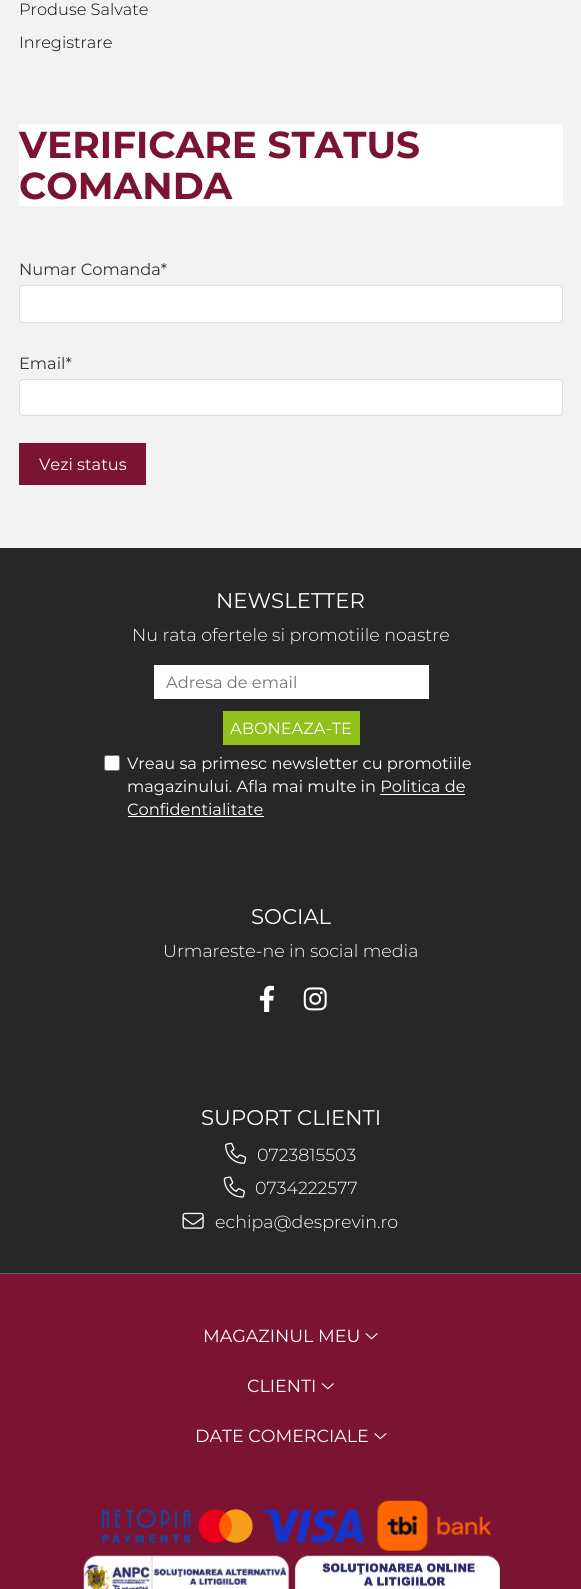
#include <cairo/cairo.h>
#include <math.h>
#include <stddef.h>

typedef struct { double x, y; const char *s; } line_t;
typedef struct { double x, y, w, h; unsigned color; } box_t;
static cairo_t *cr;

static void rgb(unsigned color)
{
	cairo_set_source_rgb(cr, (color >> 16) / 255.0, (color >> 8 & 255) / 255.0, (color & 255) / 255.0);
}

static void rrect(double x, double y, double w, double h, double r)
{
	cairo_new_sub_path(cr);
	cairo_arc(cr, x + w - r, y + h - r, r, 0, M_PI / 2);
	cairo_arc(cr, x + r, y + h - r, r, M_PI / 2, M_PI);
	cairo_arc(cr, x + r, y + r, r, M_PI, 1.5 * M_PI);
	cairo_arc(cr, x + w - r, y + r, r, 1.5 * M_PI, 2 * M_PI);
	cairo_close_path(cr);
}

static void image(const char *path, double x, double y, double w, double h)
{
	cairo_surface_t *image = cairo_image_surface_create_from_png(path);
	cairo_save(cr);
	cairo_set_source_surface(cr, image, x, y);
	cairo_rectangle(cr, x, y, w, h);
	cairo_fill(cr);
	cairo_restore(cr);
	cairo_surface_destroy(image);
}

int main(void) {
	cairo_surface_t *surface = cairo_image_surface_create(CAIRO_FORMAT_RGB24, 581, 1589);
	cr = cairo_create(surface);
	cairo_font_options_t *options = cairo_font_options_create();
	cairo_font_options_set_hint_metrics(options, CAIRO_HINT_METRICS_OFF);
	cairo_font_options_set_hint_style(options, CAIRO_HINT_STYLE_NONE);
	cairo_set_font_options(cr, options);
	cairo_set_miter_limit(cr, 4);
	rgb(0xf2f2f2);
	cairo_paint(cr);
	rgb(0xffffff);
	cairo_rectangle(cr, 19, 124, 544, 82);
	cairo_fill(cr);
	rrect(19.5, 285.5, 543, 37, 3.5);
	cairo_fill_preserve(cr);
	rgb(0xdbdbdb);
	cairo_set_line_width(cr, 1);
	cairo_stroke(cr);
	rgb(0xffffff);
	rrect(19.5, 379.5, 543, 36, 3.5);
	cairo_fill_preserve(cr);
	rgb(0xdbdbdb);
	cairo_stroke(cr);
	{
		static const box_t items[] = {
			{19, 443, 127, 42, 0x7b1432},
			{0, 548, 581, 725, 0x272727},
			{0, 1273, 581, 1, 0x616466},
			{154, 665, 275, 34, 0xffffff},
			{223, 711, 137, 34, 0x91c11b},
		};
		for (size_t i = 0; i < sizeof items / sizeof *items; i++) {
			rgb(items[i].color);
			cairo_rectangle(cr, items[i].x, items[i].y, items[i].w, items[i].h);
			cairo_fill(cr);
		}
	}
	rgb(0xffffff);
	rrect(104.5, 755.5, 15, 15, 2);
	cairo_fill_preserve(cr);
	rgb(0x767676);
	cairo_stroke(cr);
	rgb(0xffffff);
	cairo_rectangle(cr, 380, 794, 85, 1);
	cairo_fill(cr);
	cairo_rectangle(cr, 128, 816, 136, 1);
	cairo_fill(cr);
	image("img/1.png", 259, 985, 15, 27);
	image("img/2.png", 303, 987, 24, 24);
	image("img/3.png", 225, 1142, 22, 22);
	image("img/4.png", 223, 1176, 22, 22);
	image("img/5.png", 182, 1212, 22, 17);
	rgb(0x7b1432);
	cairo_rectangle(cr, 0, 1274, 581, 315);
	cairo_fill(cr);
	image("img/6.png", 365, 1333, 13, 7);
	image("img/7.png", 321, 1383, 13, 7);
	image("img/8.png", 374, 1433, 13, 7);
	image("img/9.png", 102, 1509, 262, 34);
	image("img/10.png", 377, 1500, 115, 51);
	image("img/11.png", 83, 1555, 206, 34);
	image("img/12.png", 295, 1555, 205, 34);
	cairo_select_font_face(cr, "Montserrat Light", CAIRO_FONT_SLANT_NORMAL, CAIRO_FONT_WEIGHT_NORMAL);
	cairo_set_font_size(cr, 16.25);
	rgb(0x000000);
	cairo_move_to(cr, 19, 15);
	cairo_show_text(cr, "Produse Salvate");
	cairo_move_to(cr, 19, 48);
	cairo_show_text(cr, "Inregistrare");
	cairo_select_font_face(cr, "Montserrat", CAIRO_FONT_SLANT_NORMAL, CAIRO_FONT_WEIGHT_BOLD);
	cairo_set_font_size(cr, 37.5);
	rgb(0x7b1432);
	cairo_move_to(cr, 19, 158);
	cairo_show_text(cr, "VERIFICARE STATUS");
	cairo_move_to(cr, 19, 199);
	cairo_show_text(cr, "COMANDA");
	cairo_select_font_face(cr, "Montserrat", CAIRO_FONT_SLANT_NORMAL, CAIRO_FONT_WEIGHT_NORMAL);
	cairo_set_font_size(cr, 16.25);
	rgb(0x333333);
	cairo_move_to(cr, 19, 275);
	cairo_show_text(cr, "Numar Comanda*");
	cairo_move_to(cr, 19, 369);
	cairo_show_text(cr, "Email*");
	rgb(0xffffff);
	cairo_move_to(cr, 39, 470);
	cairo_show_text(cr, "Vezi status");
	cairo_set_font_size(cr, 21.25);
	cairo_move_to(cr, 216, 608);
	cairo_show_text(cr, "NEWSLETTER");
	cairo_select_font_face(cr, "Montserrat Light", CAIRO_FONT_SLANT_NORMAL, CAIRO_FONT_WEIGHT_NORMAL);
	cairo_set_font_size(cr, 17.5);
	cairo_move_to(cr, 132, 641);
	cairo_show_text(cr, "Nu rata ofertele si promotiile noastre");
	cairo_select_font_face(cr, "Montserrat", CAIRO_FONT_SLANT_NORMAL, CAIRO_FONT_WEIGHT_NORMAL);
	cairo_set_font_size(cr, 16.25);
	rgb(0x757575);
	cairo_move_to(cr, 166, 688);
	cairo_show_text(cr, "Adresa de email");
	rgb(0xffffff);
	{
		static const line_t items[] = {
			{230, 734, "ABONEAZA-TE"},
			{127, 769, "Vreau sa primesc newsletter cu promotiile"},
			{127, 792, "magazinului. Afla mai multe in Politica de"},
			{127, 815, "Confidentialitate"},
		};
		for (size_t i = 0; i < sizeof items / sizeof *items; i++) {
			cairo_move_to(cr, items[i].x, items[i].y);
			cairo_show_text(cr, items[i].s);
		}
	}
	cairo_set_font_size(cr, 21.25);
	cairo_move_to(cr, 251, 924);
	cairo_show_text(cr, "SOCIAL");
	cairo_select_font_face(cr, "Montserrat Light", CAIRO_FONT_SLANT_NORMAL, CAIRO_FONT_WEIGHT_NORMAL);
	cairo_set_font_size(cr, 17.5);
	cairo_move_to(cr, 163, 957);
	cairo_show_text(cr, "Urmareste-ne in social media");
	cairo_select_font_face(cr, "Montserrat", CAIRO_FONT_SLANT_NORMAL, CAIRO_FONT_WEIGHT_NORMAL);
	cairo_set_font_size(cr, 21.25);
	cairo_move_to(cr, 201, 1125);
	cairo_show_text(cr, "SUPORT CLIENTI");
	cairo_select_font_face(cr, "Montserrat Light", CAIRO_FONT_SLANT_NORMAL, CAIRO_FONT_WEIGHT_NORMAL);
	cairo_set_font_size(cr, 17.5);
	{
		static const line_t items[] = {
			{257, 1161, "0723815503"},
			{255, 1194, "0734222577"},
			{215, 1228, "echipa@desprevin.ro"},
		};
		for (size_t i = 0; i < sizeof items / sizeof *items; i++) {
			cairo_move_to(cr, items[i].x, items[i].y);
			cairo_show_text(cr, items[i].s);
		}
	}
	cairo_select_font_face(cr, "Montserrat", CAIRO_FONT_SLANT_NORMAL, CAIRO_FONT_WEIGHT_NORMAL);
	{
		static const line_t items[] = {
			{203, 1342, "MAGAZINUL MEU"},
			{247, 1392, "CLIENTI"},
			{195, 1442, "DATE COMERCIALE"},
		};
		for (size_t i = 0; i < sizeof items / sizeof *items; i++) {
			cairo_move_to(cr, items[i].x, items[i].y);
			cairo_show_text(cr, items[i].s);
		}
	}
	cairo_surface_write_to_png(surface, "page.png");
	cairo_font_options_destroy(options);
	cairo_destroy(cr);
	cairo_surface_destroy(surface);
	return 0;
}
